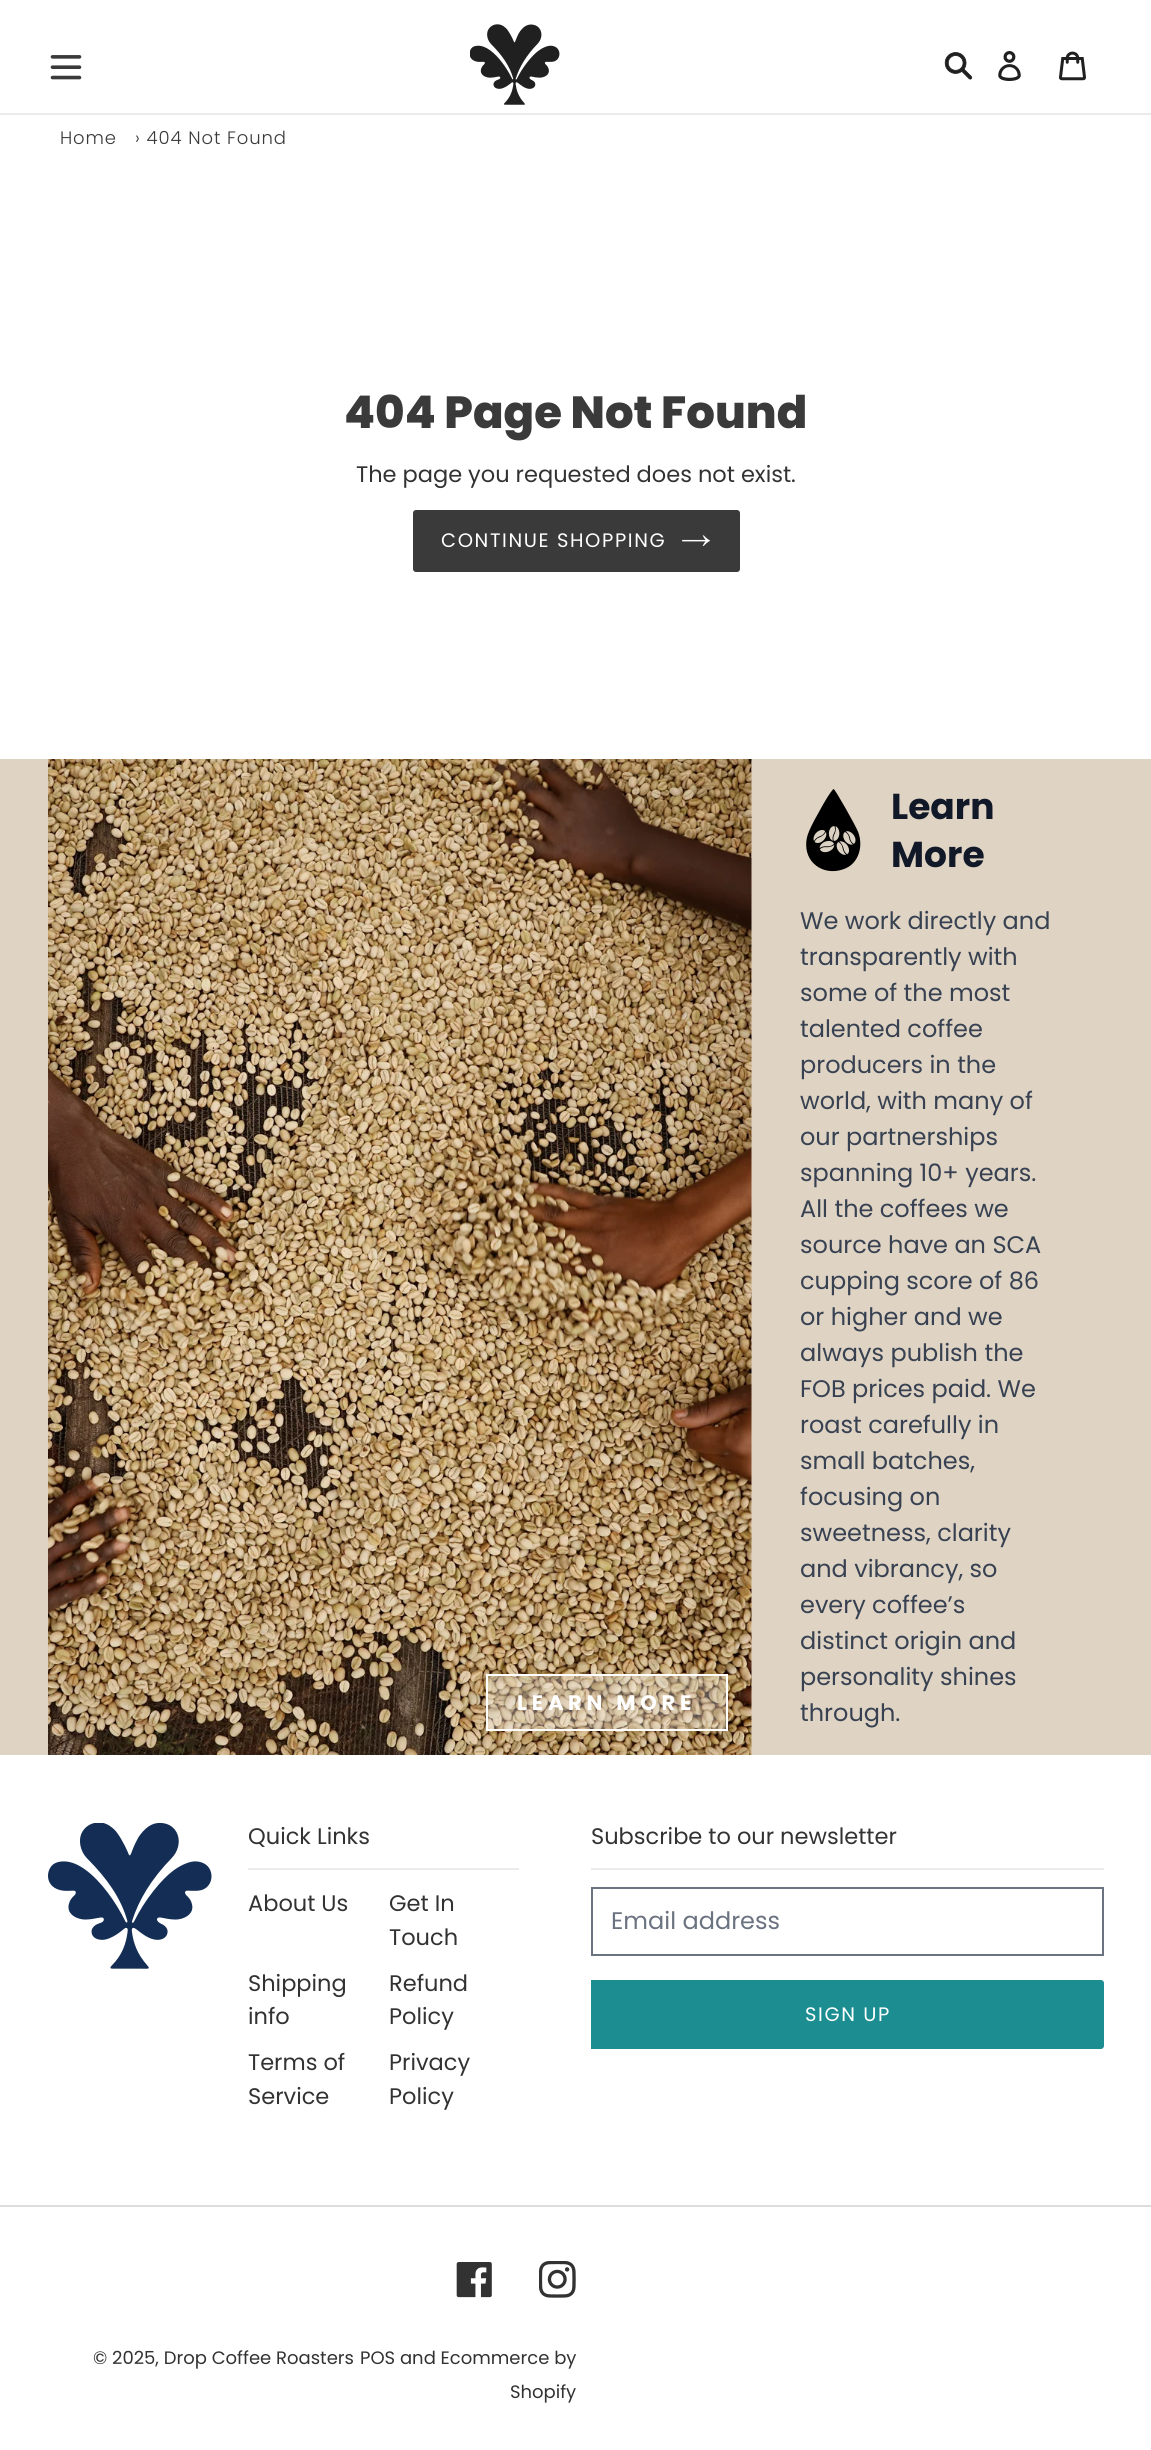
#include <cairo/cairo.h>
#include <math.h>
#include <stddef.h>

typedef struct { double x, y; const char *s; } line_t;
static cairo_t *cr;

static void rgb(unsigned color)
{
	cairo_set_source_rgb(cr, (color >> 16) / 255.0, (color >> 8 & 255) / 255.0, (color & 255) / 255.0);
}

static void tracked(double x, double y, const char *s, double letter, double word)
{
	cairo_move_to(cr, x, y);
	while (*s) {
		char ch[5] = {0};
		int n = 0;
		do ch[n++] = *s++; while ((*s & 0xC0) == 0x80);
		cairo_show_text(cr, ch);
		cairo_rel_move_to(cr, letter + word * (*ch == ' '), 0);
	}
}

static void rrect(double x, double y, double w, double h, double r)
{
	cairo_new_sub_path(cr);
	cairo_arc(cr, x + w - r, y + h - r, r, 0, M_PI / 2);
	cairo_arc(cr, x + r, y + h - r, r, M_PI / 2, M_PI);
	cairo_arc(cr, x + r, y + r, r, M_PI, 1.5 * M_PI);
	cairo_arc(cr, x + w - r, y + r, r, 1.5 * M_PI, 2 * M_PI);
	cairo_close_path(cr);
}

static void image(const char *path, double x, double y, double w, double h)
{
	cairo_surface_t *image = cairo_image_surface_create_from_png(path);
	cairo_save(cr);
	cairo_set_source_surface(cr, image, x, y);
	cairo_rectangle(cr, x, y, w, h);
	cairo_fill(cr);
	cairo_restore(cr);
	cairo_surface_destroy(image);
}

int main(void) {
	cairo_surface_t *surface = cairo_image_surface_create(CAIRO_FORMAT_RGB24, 1151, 2450);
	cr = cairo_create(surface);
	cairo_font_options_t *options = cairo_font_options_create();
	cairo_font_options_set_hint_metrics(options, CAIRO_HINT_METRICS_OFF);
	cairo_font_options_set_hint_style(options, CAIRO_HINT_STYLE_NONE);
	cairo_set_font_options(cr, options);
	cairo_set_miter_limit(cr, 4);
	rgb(0xffffff);
	cairo_paint(cr);
	image("img/1.png", 50, 55, 32, 25);
	image("img/2.png", 470, 24, 90, 81);
	image("img/3.png", 944, 52, 29, 28);
	image("img/4.png", 998, 51, 23, 30);
	image("img/5.png", 1059, 51, 27, 30);
	rgb(0xebebeb);
	cairo_rectangle(cr, 0, 113, 1151, 2);
	cairo_fill(cr);
	rgb(0x3a3a3a);
	rrect(413, 510, 327, 62, 3);
	cairo_fill(cr);
	image("img/6.png", 682, 535, 28, 11);
	rgb(0xdfd3c3);
	cairo_rectangle(cr, 0, 759, 1151, 996);
	cairo_fill(cr);
	image("img/7.png", 48, 759, 704, 996);
	cairo_set_source_rgba(cr, 1, 1, 1, 0.3);
	cairo_rectangle(cr, 487, 1675, 240, 55);
	cairo_fill_preserve(cr);
	rgb(0xffffff);
	cairo_stroke(cr);
	image("img/8.png", 806, 789, 55, 83);
	image("img/9.png", 48, 1823, 164, 146);
	rgb(0xebebeb);
	cairo_rectangle(cr, 248, 1868, 271, 2);
	cairo_fill(cr);
	cairo_rectangle(cr, 591, 1868, 513, 2);
	cairo_fill(cr);
	cairo_rectangle(cr, 592, 1888, 511, 67);
	rgb(0x6b7280);
	cairo_stroke(cr);
	rgb(0x1c8e92);
	cairo_new_path(cr);
	cairo_move_to(cr, 591, 1980);
	cairo_line_to(cr, 1101, 1980);
	cairo_curve_to(cr, 1102.5, 1980, 1104, 1981.5, 1104, 1983);
	cairo_line_to(cr, 1104, 2046);
	cairo_curve_to(cr, 1104, 2047.5, 1102.5, 2049, 1101, 2049);
	cairo_line_to(cr, 591, 2049);
	cairo_close_path(cr);
	cairo_fill(cr);
	rgb(0xdddddd);
	cairo_rectangle(cr, 0, 2205, 1151, 2);
	cairo_fill(cr);
	image("img/10.png", 456, 2262, 36, 36);
	image("img/11.png", 539, 2261, 37, 37);
	cairo_select_font_face(cr, "Poppins Light", CAIRO_FONT_SLANT_NORMAL, CAIRO_FONT_WEIGHT_NORMAL);
	cairo_set_font_size(cr, 18);
	rgb(0x3a3a3a);
	tracked(60, 144, "Home", 0.9, 0);
	tracked(135, 144, "› 404 Not Found", 0.9, 0);
	cairo_select_font_face(cr, "Poppins ExtraBold", CAIRO_FONT_SLANT_NORMAL, CAIRO_FONT_WEIGHT_NORMAL);
	cairo_set_font_size(cr, 45);
	cairo_move_to(cr, 344, 428);
	cairo_show_text(cr, "404 Page Not Found");
	cairo_select_font_face(cr, "Poppins", CAIRO_FONT_SLANT_NORMAL, CAIRO_FONT_WEIGHT_NORMAL);
	cairo_set_font_size(cr, 22.5);
	rgb(0x333232);
	cairo_move_to(cr, 356, 482);
	cairo_show_text(cr, "The page you requested does not exist.");
	cairo_set_font_size(cr, 19.5);
	rgb(0xffffff);
	tracked(441, 547, "CONTINUE SHOPPING", 1.6, 0);
	cairo_select_font_face(cr, "Poppins", CAIRO_FONT_SLANT_NORMAL, CAIRO_FONT_WEIGHT_BOLD);
	cairo_set_font_size(cr, 21);
	tracked(517, 1710, "LEARN MORE", 4.75, 0);
	cairo_set_font_size(cr, 36);
	rgb(0x111827);
	cairo_move_to(cr, 891, 819);
	cairo_show_text(cr, "Learn");
	cairo_move_to(cr, 891, 867);
	cairo_show_text(cr, "More");
	cairo_select_font_face(cr, "Poppins", CAIRO_FONT_SLANT_NORMAL, CAIRO_FONT_WEIGHT_NORMAL);
	cairo_set_font_size(cr, 24);
	rgb(0x374151);
	{
		static const line_t items[] = {
			{800, 929, "We work directly and"},
			{800, 965, "transparently with"},
			{800, 1001, "some of the most"},
			{800, 1037, "talented coffee"},
			{800, 1073, "producers in the"},
			{800, 1109, "world, with many of"},
			{800, 1145, "our partnerships"},
			{800, 1181, "spanning 10+ years."},
			{800, 1217, "All the coffees we"},
			{800, 1253, "source have an SCA"},
			{800, 1289, "cupping score of 86"},
			{800, 1325, "or higher and we"},
			{800, 1361, "always publish the"},
			{800, 1397, "FOB prices paid. We"},
			{800, 1433, "roast carefully in"},
			{800, 1469, "small batches,"},
			{800, 1505, "focusing on"},
			{800, 1541, "sweetness, clarity"},
			{800, 1577, "and vibrancy, so"},
			{800, 1613, "every coffee’s"},
			{800, 1649, "distinct origin and"},
			{800, 1685, "personality shines"},
			{800, 1721, "through."},
		};
		for (size_t i = 0; i < sizeof items / sizeof *items; i++) {
			cairo_move_to(cr, items[i].x, items[i].y);
			cairo_show_text(cr, items[i].s);
		}
	}
	cairo_set_font_size(cr, 22.5);
	rgb(0x333232);
	{
		static const line_t items[] = {
			{248, 1844, "Quick Links"},
			{248, 1911, "About Us"},
			{389, 1911, "Get In"},
			{389, 1945, "Touch"},
			{248, 1991, "Shipping"},
			{248, 2024, "info"},
			{389, 1991, "Refund"},
			{389, 2024, "Policy"},
			{248, 2070, "Terms of"},
			{248, 2104, "Service"},
			{389, 2070, "Privacy"},
			{389, 2104, "Policy"},
			{591, 1844, "Subscribe to our newsletter"},
		};
		for (size_t i = 0; i < sizeof items / sizeof *items; i++) {
			cairo_move_to(cr, items[i].x, items[i].y);
			cairo_show_text(cr, items[i].s);
		}
	}
	cairo_set_font_size(cr, 24);
	rgb(0x6b7280);
	cairo_move_to(cr, 611, 1929);
	cairo_show_text(cr, "Email address");
	cairo_set_font_size(cr, 19.5);
	rgb(0xffffff);
	tracked(805, 2021, "SIGN UP", 1.6, 0);
	cairo_set_font_size(cr, 18);
	rgb(0x333232);
	{
		static const line_t items[] = {
			{93, 2364, "© 2025, Drop Coffee Roasters"},
			{360, 2364, "POS and Ecommerce by"},
			{510, 2398, "Shopify"},
		};
		for (size_t i = 0; i < sizeof items / sizeof *items; i++) {
			cairo_move_to(cr, items[i].x, items[i].y);
			cairo_show_text(cr, items[i].s);
		}
	}
	cairo_surface_write_to_png(surface, "page.png");
	cairo_font_options_destroy(options);
	cairo_destroy(cr);
	cairo_surface_destroy(surface);
	return 0;
}
